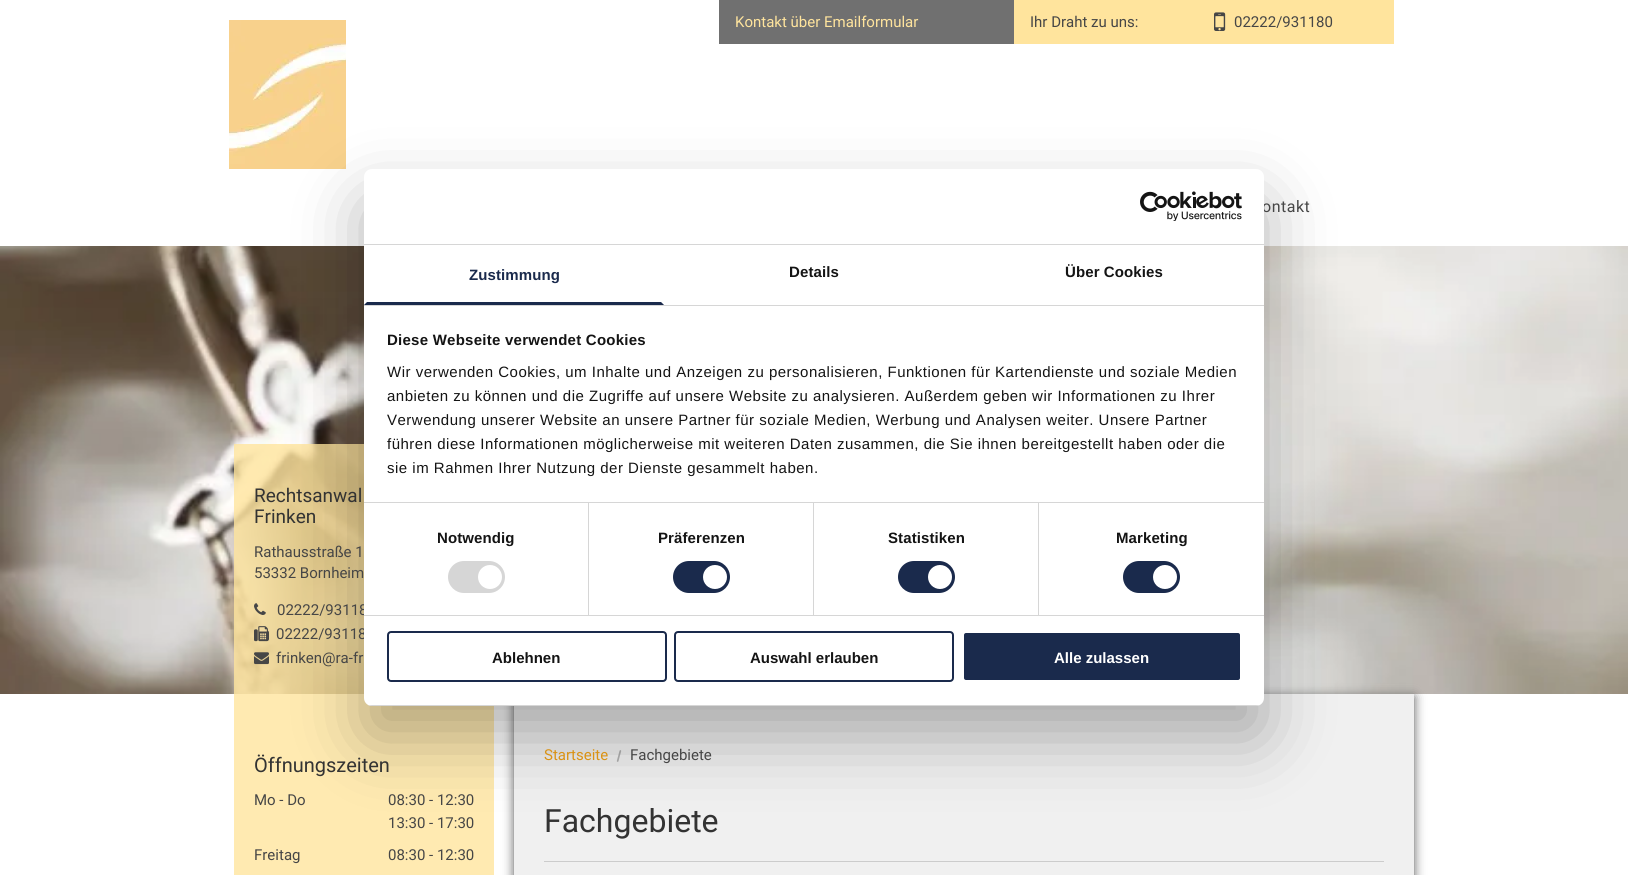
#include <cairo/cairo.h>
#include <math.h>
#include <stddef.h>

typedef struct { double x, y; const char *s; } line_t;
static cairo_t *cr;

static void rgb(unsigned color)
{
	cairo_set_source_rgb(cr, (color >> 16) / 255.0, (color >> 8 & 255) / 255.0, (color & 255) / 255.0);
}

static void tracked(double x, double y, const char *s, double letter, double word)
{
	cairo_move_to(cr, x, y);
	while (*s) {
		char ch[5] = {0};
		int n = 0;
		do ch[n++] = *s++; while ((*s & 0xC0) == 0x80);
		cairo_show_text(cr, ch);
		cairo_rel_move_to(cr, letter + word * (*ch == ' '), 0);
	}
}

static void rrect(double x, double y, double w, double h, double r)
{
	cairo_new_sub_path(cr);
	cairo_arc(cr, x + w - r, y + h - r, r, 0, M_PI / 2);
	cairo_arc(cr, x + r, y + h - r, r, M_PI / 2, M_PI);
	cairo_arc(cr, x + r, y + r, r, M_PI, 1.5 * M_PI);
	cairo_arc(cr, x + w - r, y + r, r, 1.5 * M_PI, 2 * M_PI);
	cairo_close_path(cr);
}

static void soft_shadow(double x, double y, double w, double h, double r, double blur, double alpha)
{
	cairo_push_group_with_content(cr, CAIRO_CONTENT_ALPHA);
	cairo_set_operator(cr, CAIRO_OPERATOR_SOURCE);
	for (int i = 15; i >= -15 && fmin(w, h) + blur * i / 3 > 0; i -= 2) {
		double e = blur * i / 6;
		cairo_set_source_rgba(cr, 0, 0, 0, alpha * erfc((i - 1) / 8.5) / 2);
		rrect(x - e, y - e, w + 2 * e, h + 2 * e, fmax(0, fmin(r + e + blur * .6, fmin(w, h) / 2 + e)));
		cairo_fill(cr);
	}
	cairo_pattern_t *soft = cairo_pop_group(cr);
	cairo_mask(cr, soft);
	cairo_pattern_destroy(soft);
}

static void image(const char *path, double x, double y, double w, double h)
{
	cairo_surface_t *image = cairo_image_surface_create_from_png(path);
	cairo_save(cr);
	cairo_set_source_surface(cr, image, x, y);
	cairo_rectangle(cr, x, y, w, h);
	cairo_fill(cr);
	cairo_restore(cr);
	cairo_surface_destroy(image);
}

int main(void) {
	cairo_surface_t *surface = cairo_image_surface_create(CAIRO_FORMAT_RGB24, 1628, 875);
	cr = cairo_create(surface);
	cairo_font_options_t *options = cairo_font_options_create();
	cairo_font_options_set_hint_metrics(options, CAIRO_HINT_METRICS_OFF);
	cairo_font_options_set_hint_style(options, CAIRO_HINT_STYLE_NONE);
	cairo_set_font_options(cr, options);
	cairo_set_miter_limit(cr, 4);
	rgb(0xffffff);
	cairo_paint(cr);
	image("img/1.png", 229, 20, 117, 149);
	rgb(0x707070);
	cairo_rectangle(cr, 719, 0, 295, 44);
	cairo_fill(cr);
	rgb(0xffe49d);
	cairo_rectangle(cr, 1014, 0, 380, 44);
	cairo_fill(cr);
	image("img/2.png", 1214, 12, 12, 19);
	image("img/3.png", 0, 246, 1628, 448);
	cairo_set_source_rgba(cr, 1, 0.894, 0.616, 0.8);
	cairo_rectangle(cr, 234, 444, 260, 431);
	cairo_fill(cr);
	image("img/4.png", 254, 603, 12, 12);
	image("img/5.png", 254, 626, 15, 16);
	image("img/6.png", 254, 652, 15, 13);
	rgb(0x555555);
	soft_shadow(514, 697, 900, 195, 0, 5.5, 1);
	rgb(0xf0f0f0);
	cairo_rectangle(cr, 514, 694, 900, 181);
	cairo_fill(cr);
	image("img/7.png", 616, 750, 6, 12);
	rgb(0xcccccc);
	cairo_rectangle(cr, 544, 861, 840, 1);
	cairo_fill(cr);
	rgb(0x000000);
	soft_shadow(364, 201, 900, 537, 8, 34, 0.3);
	cairo_select_font_face(cr, "Roboto", CAIRO_FONT_SLANT_NORMAL, CAIRO_FONT_WEIGHT_NORMAL);
	cairo_set_font_size(cr, 15);
	rgb(0xffe49d);
	cairo_move_to(cr, 735, 27);
	cairo_show_text(cr, "Kontakt über Emailformular");
	rgb(0x464646);
	cairo_move_to(cr, 1030, 27);
	cairo_show_text(cr, "Ihr Draht zu uns:");
	cairo_move_to(cr, 1234, 27);
	cairo_show_text(cr, "02222/931180");
	cairo_set_font_size(cr, 16);
	tracked(1262, 212, "ontakt", 0.5, 0);
	cairo_set_font_size(cr, 19);
	rgb(0x333333);
	cairo_move_to(cr, 254, 502);
	cairo_show_text(cr, "Rechtsanwal");
	cairo_move_to(cr, 254, 523);
	cairo_show_text(cr, "Frinken");
	cairo_set_font_size(cr, 15);
	rgb(0x464646);
	{
		static const line_t items[] = {
			{254, 557, "Rathausstraße 1"},
			{254, 578, "53332 Bornheim"},
			{277, 615, "02222/93118"},
			{276, 639, "02222/93118"},
			{276, 663, "frinken@ra-fr"},
		};
		for (size_t i = 0; i < sizeof items / sizeof *items; i++) {
			cairo_move_to(cr, items[i].x, items[i].y);
			cairo_show_text(cr, items[i].s);
		}
	}
	cairo_set_font_size(cr, 20);
	rgb(0x333333);
	cairo_move_to(cr, 254, 772);
	cairo_show_text(cr, "Öffnungszeiten");
	cairo_set_font_size(cr, 15);
	rgb(0x464646);
	{
		static const line_t items[] = {
			{254, 805, "Mo - Do"},
			{388, 805, "08:30 - 12:30"},
			{388, 828, "13:30 - 17:30"},
			{254, 860, "Freitag"},
			{388, 860, "08:30 - 12:30"},
		};
		for (size_t i = 0; i < sizeof items / sizeof *items; i++) {
			cairo_move_to(cr, items[i].x, items[i].y);
			cairo_show_text(cr, items[i].s);
		}
	}
	rgb(0xda9214);
	cairo_move_to(cr, 544, 760);
	cairo_show_text(cr, "Startseite");
	rgb(0x464646);
	cairo_move_to(cr, 630, 760);
	cairo_show_text(cr, "Fachgebiete");
	cairo_set_font_size(cr, 32);
	rgb(0x333333);
	cairo_move_to(cr, 544, 832);
	cairo_show_text(cr, "Fachgebiete");
	rgb(0xffffff);
	rrect(364, 169, 900, 537, 8);
	cairo_fill(cr);
	rgb(0xd6d6d6);
	cairo_rectangle(cr, 364, 244, 900, 1);
	cairo_fill(cr);
	image("img/8.png", 1140, 191, 102, 30);
	cairo_rectangle(cr, 364, 305, 900, 1);
	cairo_fill(cr);
	rgb(0x1a2a4c);
	cairo_new_path(cr);
	cairo_move_to(cr, 664, 305);
	cairo_line_to(cr, 364, 305);
	cairo_line_to(cr, 367, 302);
	cairo_line_to(cr, 661, 302);
	cairo_close_path(cr);
	cairo_fill(cr);
	cairo_select_font_face(cr, "Liberation Sans", CAIRO_FONT_SLANT_NORMAL, CAIRO_FONT_WEIGHT_BOLD);
	cairo_set_font_size(cr, 15);
	tracked(469, 280, "Zustimmung", 0.1, 0);
	rgb(0x141414);
	tracked(789, 277, "Details", 0.1, 0);
	tracked(1065, 277, "Über Cookies", 0.1, 0);
	rgb(0xd6d6d6);
	cairo_rectangle(cr, 364, 502, 900, 1);
	cairo_fill(cr);
	rgb(0x141414);
	tracked(387, 345, "Diese Webseite verwendet Cookies", 0.25, 0);
	cairo_select_font_face(cr, "Liberation Sans", CAIRO_FONT_SLANT_NORMAL, CAIRO_FONT_WEIGHT_NORMAL);
	{
		static const line_t items[] = {
			{387, 377, "Wir verwenden Cookies, um Inhalte und Anzeigen zu personalisieren, Funktionen für Kartendienste und soziale Medien"},
			{387, 401, "anbieten zu können und die Zugriffe auf unsere Website zu analysieren. Außerdem geben wir Informationen zu Ihrer"},
			{387, 425, "Verwendung unserer Website an unsere Partner für soziale Medien, Werbung und Analysen weiter. Unsere Partner"},
			{387, 449, "führen diese Informationen möglicherweise mit weiteren Daten zusammen, die Sie ihnen bereitgestellt haben oder die"},
			{387, 473, "sie im Rahmen Ihrer Nutzung der Dienste gesammelt haben."},
		};
		for (size_t i = 0; i < sizeof items / sizeof *items; i++) {
			tracked(items[i].x, items[i].y, items[i].s, 0.5, 0);
		}
	}
	rgb(0xd6d6d6);
	cairo_rectangle(cr, 364, 615, 900, 1);
	cairo_fill(cr);
	cairo_rectangle(cr, 588, 503, 1, 112);
	cairo_fill(cr);
	cairo_select_font_face(cr, "Liberation Sans", CAIRO_FONT_SLANT_NORMAL, CAIRO_FONT_WEIGHT_BOLD);
	rgb(0x141414);
	tracked(437, 543, "Notwendig", 0.1, 0);
	rgb(0xd6d6d6);
	rrect(448, 561, 57, 32, 16);
	cairo_fill(cr);
	rgb(0xffffff);
	cairo_arc(cr, 490, 577, 12, 0, 2 * M_PI);
	cairo_fill(cr);
	rgb(0xd6d6d6);
	cairo_rectangle(cr, 813, 503, 1, 112);
	cairo_fill(cr);
	rgb(0x141414);
	tracked(658, 543, "Präferenzen", 0.1, 0);
	rgb(0x1a2a4c);
	rrect(673, 561, 57, 32, 16);
	cairo_fill(cr);
	rgb(0xffffff);
	cairo_arc(cr, 715, 577, 12, 0, 2 * M_PI);
	cairo_fill(cr);
	rgb(0xd6d6d6);
	cairo_rectangle(cr, 1038, 503, 1, 112);
	cairo_fill(cr);
	rgb(0x141414);
	tracked(888, 543, "Statistiken", 0.1, 0);
	rgb(0x1a2a4c);
	rrect(898, 561, 57, 32, 16);
	cairo_fill(cr);
	rgb(0xffffff);
	cairo_arc(cr, 940, 577, 12, 0, 2 * M_PI);
	cairo_fill(cr);
	rgb(0x141414);
	tracked(1116, 543, "Marketing", 0.1, 0);
	rgb(0x1a2a4c);
	rrect(1123, 561, 57, 32, 16);
	cairo_fill(cr);
	rgb(0xffffff);
	cairo_arc(cr, 1165, 577, 12, 0, 2 * M_PI);
	cairo_fill(cr);
	cairo_save(cr);
	rrect(364, 169, 900, 537, 8);
	cairo_clip(cr);
	rgb(0xd6d6d6);
	cairo_rectangle(cr, 364, 705, 900, 1);
	cairo_fill(cr);
	cairo_restore(cr);
	rrect(388, 632, 278, 49, 3);
	rgb(0x1a2a4c);
	cairo_stroke(cr);
	rgb(0x141414);
	cairo_move_to(cr, 492, 663);
	cairo_show_text(cr, "Ablehnen");
	rrect(675, 632, 278, 49, 3);
	rgb(0x1a2a4c);
	cairo_stroke(cr);
	rgb(0x141414);
	cairo_move_to(cr, 750, 663);
	cairo_show_text(cr, "Auswahl erlauben");
	rgb(0x1a2a4c);
	rrect(963, 632, 278, 49, 3);
	cairo_fill_preserve(cr);
	rgb(0xffffff);
	cairo_stroke(cr);
	cairo_move_to(cr, 1054, 663);
	cairo_show_text(cr, "Alle zulassen");
	cairo_surface_write_to_png(surface, "page.png");
	cairo_font_options_destroy(options);
	cairo_destroy(cr);
	cairo_surface_destroy(surface);
	return 0;
}
